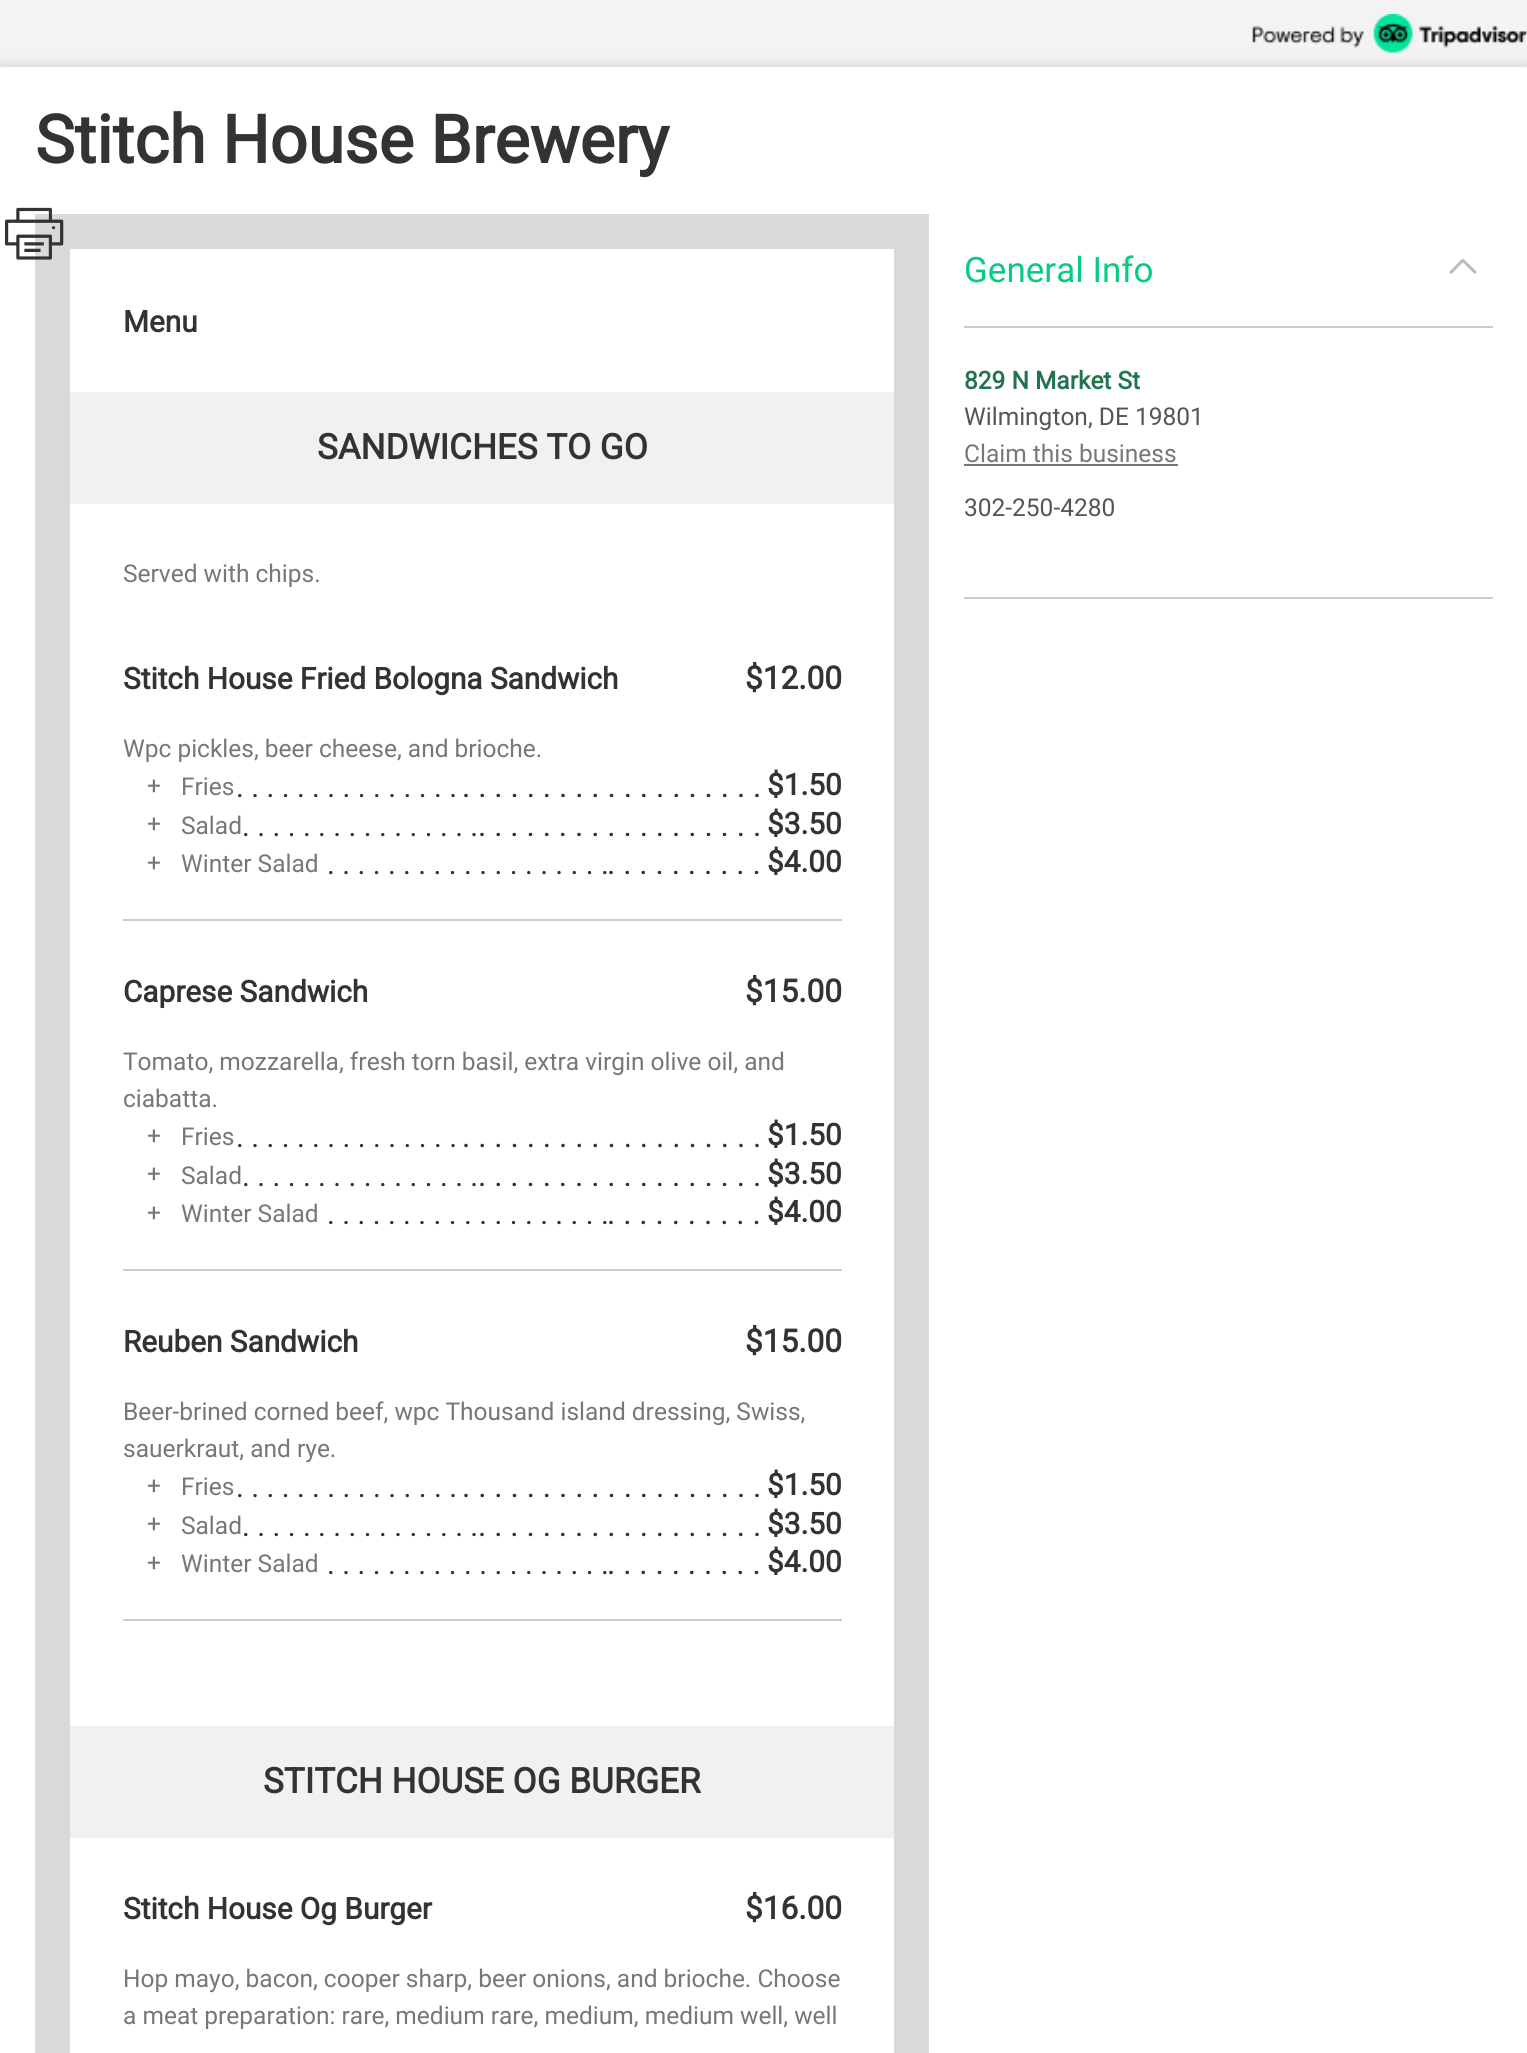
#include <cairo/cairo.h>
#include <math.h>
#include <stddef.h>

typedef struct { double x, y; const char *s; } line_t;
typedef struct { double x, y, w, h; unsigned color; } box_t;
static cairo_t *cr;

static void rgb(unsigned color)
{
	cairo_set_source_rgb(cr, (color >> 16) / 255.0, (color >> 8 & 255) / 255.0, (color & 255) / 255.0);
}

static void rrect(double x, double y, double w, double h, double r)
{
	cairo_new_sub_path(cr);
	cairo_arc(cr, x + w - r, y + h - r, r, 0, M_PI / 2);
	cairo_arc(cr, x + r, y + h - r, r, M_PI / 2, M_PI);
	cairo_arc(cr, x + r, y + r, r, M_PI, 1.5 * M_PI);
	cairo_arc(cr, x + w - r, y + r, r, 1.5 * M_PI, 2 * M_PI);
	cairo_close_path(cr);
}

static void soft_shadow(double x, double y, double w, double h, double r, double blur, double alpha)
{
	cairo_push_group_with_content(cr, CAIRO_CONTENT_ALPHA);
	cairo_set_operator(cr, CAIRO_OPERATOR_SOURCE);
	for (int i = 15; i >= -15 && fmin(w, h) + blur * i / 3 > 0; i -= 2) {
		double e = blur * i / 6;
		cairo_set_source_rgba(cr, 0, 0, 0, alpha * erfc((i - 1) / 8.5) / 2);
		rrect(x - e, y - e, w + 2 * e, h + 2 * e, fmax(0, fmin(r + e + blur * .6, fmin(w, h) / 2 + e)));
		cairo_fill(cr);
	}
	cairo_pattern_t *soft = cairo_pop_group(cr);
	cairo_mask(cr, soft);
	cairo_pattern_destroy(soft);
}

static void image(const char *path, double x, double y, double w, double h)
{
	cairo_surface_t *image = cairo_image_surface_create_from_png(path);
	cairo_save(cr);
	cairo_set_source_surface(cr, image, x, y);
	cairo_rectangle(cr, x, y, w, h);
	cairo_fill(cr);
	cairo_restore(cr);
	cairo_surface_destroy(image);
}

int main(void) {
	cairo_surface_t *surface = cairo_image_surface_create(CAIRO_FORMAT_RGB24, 1527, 2053);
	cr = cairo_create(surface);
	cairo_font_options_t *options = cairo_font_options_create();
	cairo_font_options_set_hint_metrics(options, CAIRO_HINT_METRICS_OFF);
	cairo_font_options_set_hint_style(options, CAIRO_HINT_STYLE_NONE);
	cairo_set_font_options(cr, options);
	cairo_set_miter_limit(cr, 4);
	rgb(0xf3f3f3);
	cairo_paint(cr);
	rgb(0xcccccc);
	soft_shadow(0, 67, 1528, 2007, 0, 7, 1);
	image("img/1.png", 1252, 14, 275, 39);
	rgb(0xffffff);
	cairo_rectangle(cr, 0, 67, 1527, 1986);
	cairo_fill(cr);
	cairo_rectangle(cr, 52.5, 231.5, 859, 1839);
	rgb(0xd9d9d9);
	cairo_set_line_width(cr, 35);
	cairo_stroke(cr);
	image("img/2.png", 4, 207, 60, 53);
	{
		static const box_t items[] = {
			{70, 392, 824, 112, 0xf1f1f1},
			{123, 919, 719, 2, 0xcccccc},
			{123, 1269, 719, 2, 0xcccccc},
			{123, 1619, 719, 2, 0xcccccc},
			{70, 1726, 824, 112, 0xf1f1f1},
			{964, 326, 529, 2, 0xcccccc},
		};
		for (size_t i = 0; i < sizeof items / sizeof *items; i++) {
			rgb(items[i].color);
			cairo_rectangle(cr, items[i].x, items[i].y, items[i].w, items[i].h);
			cairo_fill(cr);
		}
	}
	image("img/3.png", 1449, 258, 28, 16);
	rgb(0x777777);
	cairo_rectangle(cr, 964, 464, 214, 2);
	cairo_fill(cr);
	rgb(0xcccccc);
	cairo_rectangle(cr, 964, 597, 529, 2);
	cairo_fill(cr);
	cairo_select_font_face(cr, "Roboto", CAIRO_FONT_SLANT_NORMAL, CAIRO_FONT_WEIGHT_BOLD);
	cairo_set_font_size(cr, 66.5);
	rgb(0x333333);
	cairo_move_to(cr, 35, 163);
	cairo_show_text(cr, "Stitch House Brewery");
	cairo_set_font_size(cr, 29.75);
	cairo_move_to(cr, 123, 332);
	cairo_show_text(cr, "Menu");
	cairo_set_font_size(cr, 35);
	cairo_move_to(cr, 317, 459);
	cairo_show_text(cr, "SANDWICHES TO GO");
	cairo_select_font_face(cr, "Roboto", CAIRO_FONT_SLANT_NORMAL, CAIRO_FONT_WEIGHT_NORMAL);
	cairo_set_font_size(cr, 24.5);
	rgb(0x777777);
	cairo_move_to(cr, 123, 582);
	cairo_show_text(cr, "Served with chips.");
	cairo_select_font_face(cr, "Roboto", CAIRO_FONT_SLANT_NORMAL, CAIRO_FONT_WEIGHT_BOLD);
	cairo_set_font_size(cr, 29.75);
	rgb(0x333333);
	cairo_move_to(cr, 123, 689);
	cairo_show_text(cr, "Stitch House Fried Bologna Sandwich");
	cairo_set_font_size(cr, 31.6);
	cairo_move_to(cr, 745, 689);
	cairo_show_text(cr, "$12.00");
	cairo_select_font_face(cr, "Roboto", CAIRO_FONT_SLANT_NORMAL, CAIRO_FONT_WEIGHT_NORMAL);
	cairo_set_font_size(cr, 24.5);
	rgb(0x777777);
	{
		static const line_t items[] = {
			{123, 757, "Wpc pickles, beer cheese, and brioche."},
			{147, 794, "+"},
			{181, 795, "Fries"},
		};
		for (size_t i = 0; i < sizeof items / sizeof *items; i++) {
			cairo_move_to(cr, items[i].x, items[i].y);
			cairo_show_text(cr, items[i].s);
		}
	}
	cairo_set_font_size(cr, 29.75);
	rgb(0x333333);
	cairo_move_to(cr, 236, 797);
	cairo_show_text(cr, ". . . . . . . . . . . . . . .");
	cairo_set_font_size(cr, 31.6);
	cairo_move_to(cr, 462, 797);
	cairo_show_text(cr, ". . . . . . . . . . . . . . . . . . .");
	cairo_select_font_face(cr, "Roboto", CAIRO_FONT_SLANT_NORMAL, CAIRO_FONT_WEIGHT_BOLD);
	cairo_set_font_size(cr, 29.75);
	cairo_move_to(cr, 767, 795);
	cairo_show_text(cr, "$1.50");
	cairo_select_font_face(cr, "Roboto", CAIRO_FONT_SLANT_NORMAL, CAIRO_FONT_WEIGHT_NORMAL);
	cairo_set_font_size(cr, 24.5);
	rgb(0x777777);
	cairo_move_to(cr, 147, 832);
	cairo_show_text(cr, "+");
	cairo_move_to(cr, 181, 834);
	cairo_show_text(cr, "Salad");
	cairo_set_font_size(cr, 29.75);
	rgb(0x333333);
	cairo_move_to(cr, 242, 836);
	cairo_show_text(cr, ". . . . . . . . . . . . . . . .");
	cairo_set_font_size(cr, 31.6);
	cairo_move_to(cr, 478, 836);
	cairo_show_text(cr, ". . . . . . . . . . . . . . . . . .");
	cairo_select_font_face(cr, "Roboto", CAIRO_FONT_SLANT_NORMAL, CAIRO_FONT_WEIGHT_BOLD);
	cairo_set_font_size(cr, 29.75);
	cairo_move_to(cr, 767, 834);
	cairo_show_text(cr, "$3.50");
	cairo_select_font_face(cr, "Roboto", CAIRO_FONT_SLANT_NORMAL, CAIRO_FONT_WEIGHT_NORMAL);
	cairo_set_font_size(cr, 24.5);
	rgb(0x777777);
	cairo_move_to(cr, 147, 871);
	cairo_show_text(cr, "+");
	cairo_move_to(cr, 181, 872);
	cairo_show_text(cr, "Winter Salad");
	cairo_set_font_size(cr, 29.75);
	rgb(0x333333);
	cairo_move_to(cr, 327, 874);
	cairo_show_text(cr, ". . . . . . . . . . . . . . . . . . .");
	cairo_set_font_size(cr, 31.6);
	cairo_move_to(cr, 607, 874);
	cairo_show_text(cr, ". . . . . . . . . .");
	cairo_select_font_face(cr, "Roboto", CAIRO_FONT_SLANT_NORMAL, CAIRO_FONT_WEIGHT_BOLD);
	cairo_set_font_size(cr, 29.75);
	cairo_move_to(cr, 767, 872);
	cairo_show_text(cr, "$4.00");
	cairo_move_to(cr, 123, 1002);
	cairo_show_text(cr, "Caprese Sandwich");
	cairo_set_font_size(cr, 31.6);
	cairo_move_to(cr, 745, 1002);
	cairo_show_text(cr, "$15.00");
	cairo_select_font_face(cr, "Roboto", CAIRO_FONT_SLANT_NORMAL, CAIRO_FONT_WEIGHT_NORMAL);
	cairo_set_font_size(cr, 24.5);
	rgb(0x777777);
	{
		static const line_t items[] = {
			{123, 1070, "Tomato, mozzarella, fresh torn basil, extra virgin olive oil, and"},
			{123, 1107, "ciabatta."},
			{147, 1144, "+"},
			{181, 1145, "Fries"},
		};
		for (size_t i = 0; i < sizeof items / sizeof *items; i++) {
			cairo_move_to(cr, items[i].x, items[i].y);
			cairo_show_text(cr, items[i].s);
		}
	}
	cairo_set_font_size(cr, 29.75);
	rgb(0x333333);
	cairo_move_to(cr, 236, 1147);
	cairo_show_text(cr, ". . . . . . . . . . . . . . .");
	cairo_set_font_size(cr, 31.6);
	cairo_move_to(cr, 462, 1147);
	cairo_show_text(cr, ". . . . . . . . . . . . . . . . . . .");
	cairo_select_font_face(cr, "Roboto", CAIRO_FONT_SLANT_NORMAL, CAIRO_FONT_WEIGHT_BOLD);
	cairo_set_font_size(cr, 29.75);
	cairo_move_to(cr, 767, 1145);
	cairo_show_text(cr, "$1.50");
	cairo_select_font_face(cr, "Roboto", CAIRO_FONT_SLANT_NORMAL, CAIRO_FONT_WEIGHT_NORMAL);
	cairo_set_font_size(cr, 24.5);
	rgb(0x777777);
	cairo_move_to(cr, 147, 1182);
	cairo_show_text(cr, "+");
	cairo_move_to(cr, 181, 1184);
	cairo_show_text(cr, "Salad");
	cairo_set_font_size(cr, 29.75);
	rgb(0x333333);
	cairo_move_to(cr, 242, 1186);
	cairo_show_text(cr, ". . . . . . . . . . . . . . . .");
	cairo_set_font_size(cr, 31.6);
	cairo_move_to(cr, 478, 1186);
	cairo_show_text(cr, ". . . . . . . . . . . . . . . . . .");
	cairo_select_font_face(cr, "Roboto", CAIRO_FONT_SLANT_NORMAL, CAIRO_FONT_WEIGHT_BOLD);
	cairo_set_font_size(cr, 29.75);
	cairo_move_to(cr, 767, 1184);
	cairo_show_text(cr, "$3.50");
	cairo_select_font_face(cr, "Roboto", CAIRO_FONT_SLANT_NORMAL, CAIRO_FONT_WEIGHT_NORMAL);
	cairo_set_font_size(cr, 24.5);
	rgb(0x777777);
	cairo_move_to(cr, 147, 1221);
	cairo_show_text(cr, "+");
	cairo_move_to(cr, 181, 1222);
	cairo_show_text(cr, "Winter Salad");
	cairo_set_font_size(cr, 29.75);
	rgb(0x333333);
	cairo_move_to(cr, 327, 1224);
	cairo_show_text(cr, ". . . . . . . . . . . . . . . . . . .");
	cairo_set_font_size(cr, 31.6);
	cairo_move_to(cr, 607, 1224);
	cairo_show_text(cr, ". . . . . . . . . .");
	cairo_select_font_face(cr, "Roboto", CAIRO_FONT_SLANT_NORMAL, CAIRO_FONT_WEIGHT_BOLD);
	cairo_set_font_size(cr, 29.75);
	cairo_move_to(cr, 767, 1222);
	cairo_show_text(cr, "$4.00");
	cairo_move_to(cr, 123, 1352);
	cairo_show_text(cr, "Reuben Sandwich");
	cairo_set_font_size(cr, 31.6);
	cairo_move_to(cr, 745, 1352);
	cairo_show_text(cr, "$15.00");
	cairo_select_font_face(cr, "Roboto", CAIRO_FONT_SLANT_NORMAL, CAIRO_FONT_WEIGHT_NORMAL);
	cairo_set_font_size(cr, 24.5);
	rgb(0x777777);
	{
		static const line_t items[] = {
			{123, 1420, "Beer-brined corned beef, wpc Thousand island dressing, Swiss,"},
			{123, 1457, "sauerkraut, and rye."},
			{147, 1494, "+"},
			{181, 1495, "Fries"},
		};
		for (size_t i = 0; i < sizeof items / sizeof *items; i++) {
			cairo_move_to(cr, items[i].x, items[i].y);
			cairo_show_text(cr, items[i].s);
		}
	}
	cairo_set_font_size(cr, 29.75);
	rgb(0x333333);
	cairo_move_to(cr, 236, 1497);
	cairo_show_text(cr, ". . . . . . . . . . . . . . .");
	cairo_set_font_size(cr, 31.6);
	cairo_move_to(cr, 462, 1497);
	cairo_show_text(cr, ". . . . . . . . . . . . . . . . . . .");
	cairo_select_font_face(cr, "Roboto", CAIRO_FONT_SLANT_NORMAL, CAIRO_FONT_WEIGHT_BOLD);
	cairo_set_font_size(cr, 29.75);
	cairo_move_to(cr, 767, 1495);
	cairo_show_text(cr, "$1.50");
	cairo_select_font_face(cr, "Roboto", CAIRO_FONT_SLANT_NORMAL, CAIRO_FONT_WEIGHT_NORMAL);
	cairo_set_font_size(cr, 24.5);
	rgb(0x777777);
	cairo_move_to(cr, 147, 1532);
	cairo_show_text(cr, "+");
	cairo_move_to(cr, 181, 1534);
	cairo_show_text(cr, "Salad");
	cairo_set_font_size(cr, 29.75);
	rgb(0x333333);
	cairo_move_to(cr, 242, 1536);
	cairo_show_text(cr, ". . . . . . . . . . . . . . . .");
	cairo_set_font_size(cr, 31.6);
	cairo_move_to(cr, 478, 1536);
	cairo_show_text(cr, ". . . . . . . . . . . . . . . . . .");
	cairo_select_font_face(cr, "Roboto", CAIRO_FONT_SLANT_NORMAL, CAIRO_FONT_WEIGHT_BOLD);
	cairo_set_font_size(cr, 29.75);
	cairo_move_to(cr, 767, 1534);
	cairo_show_text(cr, "$3.50");
	cairo_select_font_face(cr, "Roboto", CAIRO_FONT_SLANT_NORMAL, CAIRO_FONT_WEIGHT_NORMAL);
	cairo_set_font_size(cr, 24.5);
	rgb(0x777777);
	cairo_move_to(cr, 147, 1571);
	cairo_show_text(cr, "+");
	cairo_move_to(cr, 181, 1572);
	cairo_show_text(cr, "Winter Salad");
	cairo_set_font_size(cr, 29.75);
	rgb(0x333333);
	cairo_move_to(cr, 327, 1574);
	cairo_show_text(cr, ". . . . . . . . . . . . . . . . . . .");
	cairo_set_font_size(cr, 31.6);
	cairo_move_to(cr, 607, 1574);
	cairo_show_text(cr, ". . . . . . . . . .");
	cairo_select_font_face(cr, "Roboto", CAIRO_FONT_SLANT_NORMAL, CAIRO_FONT_WEIGHT_BOLD);
	cairo_set_font_size(cr, 29.75);
	cairo_move_to(cr, 767, 1572);
	cairo_show_text(cr, "$4.00");
	cairo_set_font_size(cr, 35);
	cairo_move_to(cr, 263, 1793);
	cairo_show_text(cr, "STITCH HOUSE OG BURGER");
	cairo_set_font_size(cr, 29.75);
	cairo_move_to(cr, 123, 1919);
	cairo_show_text(cr, "Stitch House Og Burger");
	cairo_set_font_size(cr, 31.6);
	cairo_move_to(cr, 745, 1919);
	cairo_show_text(cr, "$16.00");
	cairo_select_font_face(cr, "Roboto", CAIRO_FONT_SLANT_NORMAL, CAIRO_FONT_WEIGHT_NORMAL);
	cairo_set_font_size(cr, 24.5);
	rgb(0x777777);
	cairo_move_to(cr, 123, 1987);
	cairo_show_text(cr, "Hop mayo, bacon, cooper sharp, beer onions, and brioche. Choose");
	cairo_move_to(cr, 123, 2024);
	cairo_show_text(cr, "a meat preparation: rare, medium rare, medium, medium well, well");
	cairo_set_font_size(cr, 35);
	rgb(0x05cc7f);
	cairo_move_to(cr, 964, 282);
	cairo_show_text(cr, "General Info");
	cairo_select_font_face(cr, "Roboto", CAIRO_FONT_SLANT_NORMAL, CAIRO_FONT_WEIGHT_BOLD);
	cairo_set_font_size(cr, 24.5);
	rgb(0x21744d);
	cairo_move_to(cr, 964, 389);
	cairo_show_text(cr, "829 N Market St");
	cairo_select_font_face(cr, "Roboto", CAIRO_FONT_SLANT_NORMAL, CAIRO_FONT_WEIGHT_NORMAL);
	rgb(0x555555);
	cairo_move_to(cr, 964, 425);
	cairo_show_text(cr, "Wilmington, DE 19801");
	rgb(0x777777);
	cairo_move_to(cr, 964, 462);
	cairo_show_text(cr, "Claim this business");
	rgb(0x555555);
	cairo_move_to(cr, 964, 516);
	cairo_show_text(cr, "302-250-4280");
	cairo_surface_write_to_png(surface, "page.png");
	cairo_font_options_destroy(options);
	cairo_destroy(cr);
	cairo_surface_destroy(surface);
	return 0;
}
